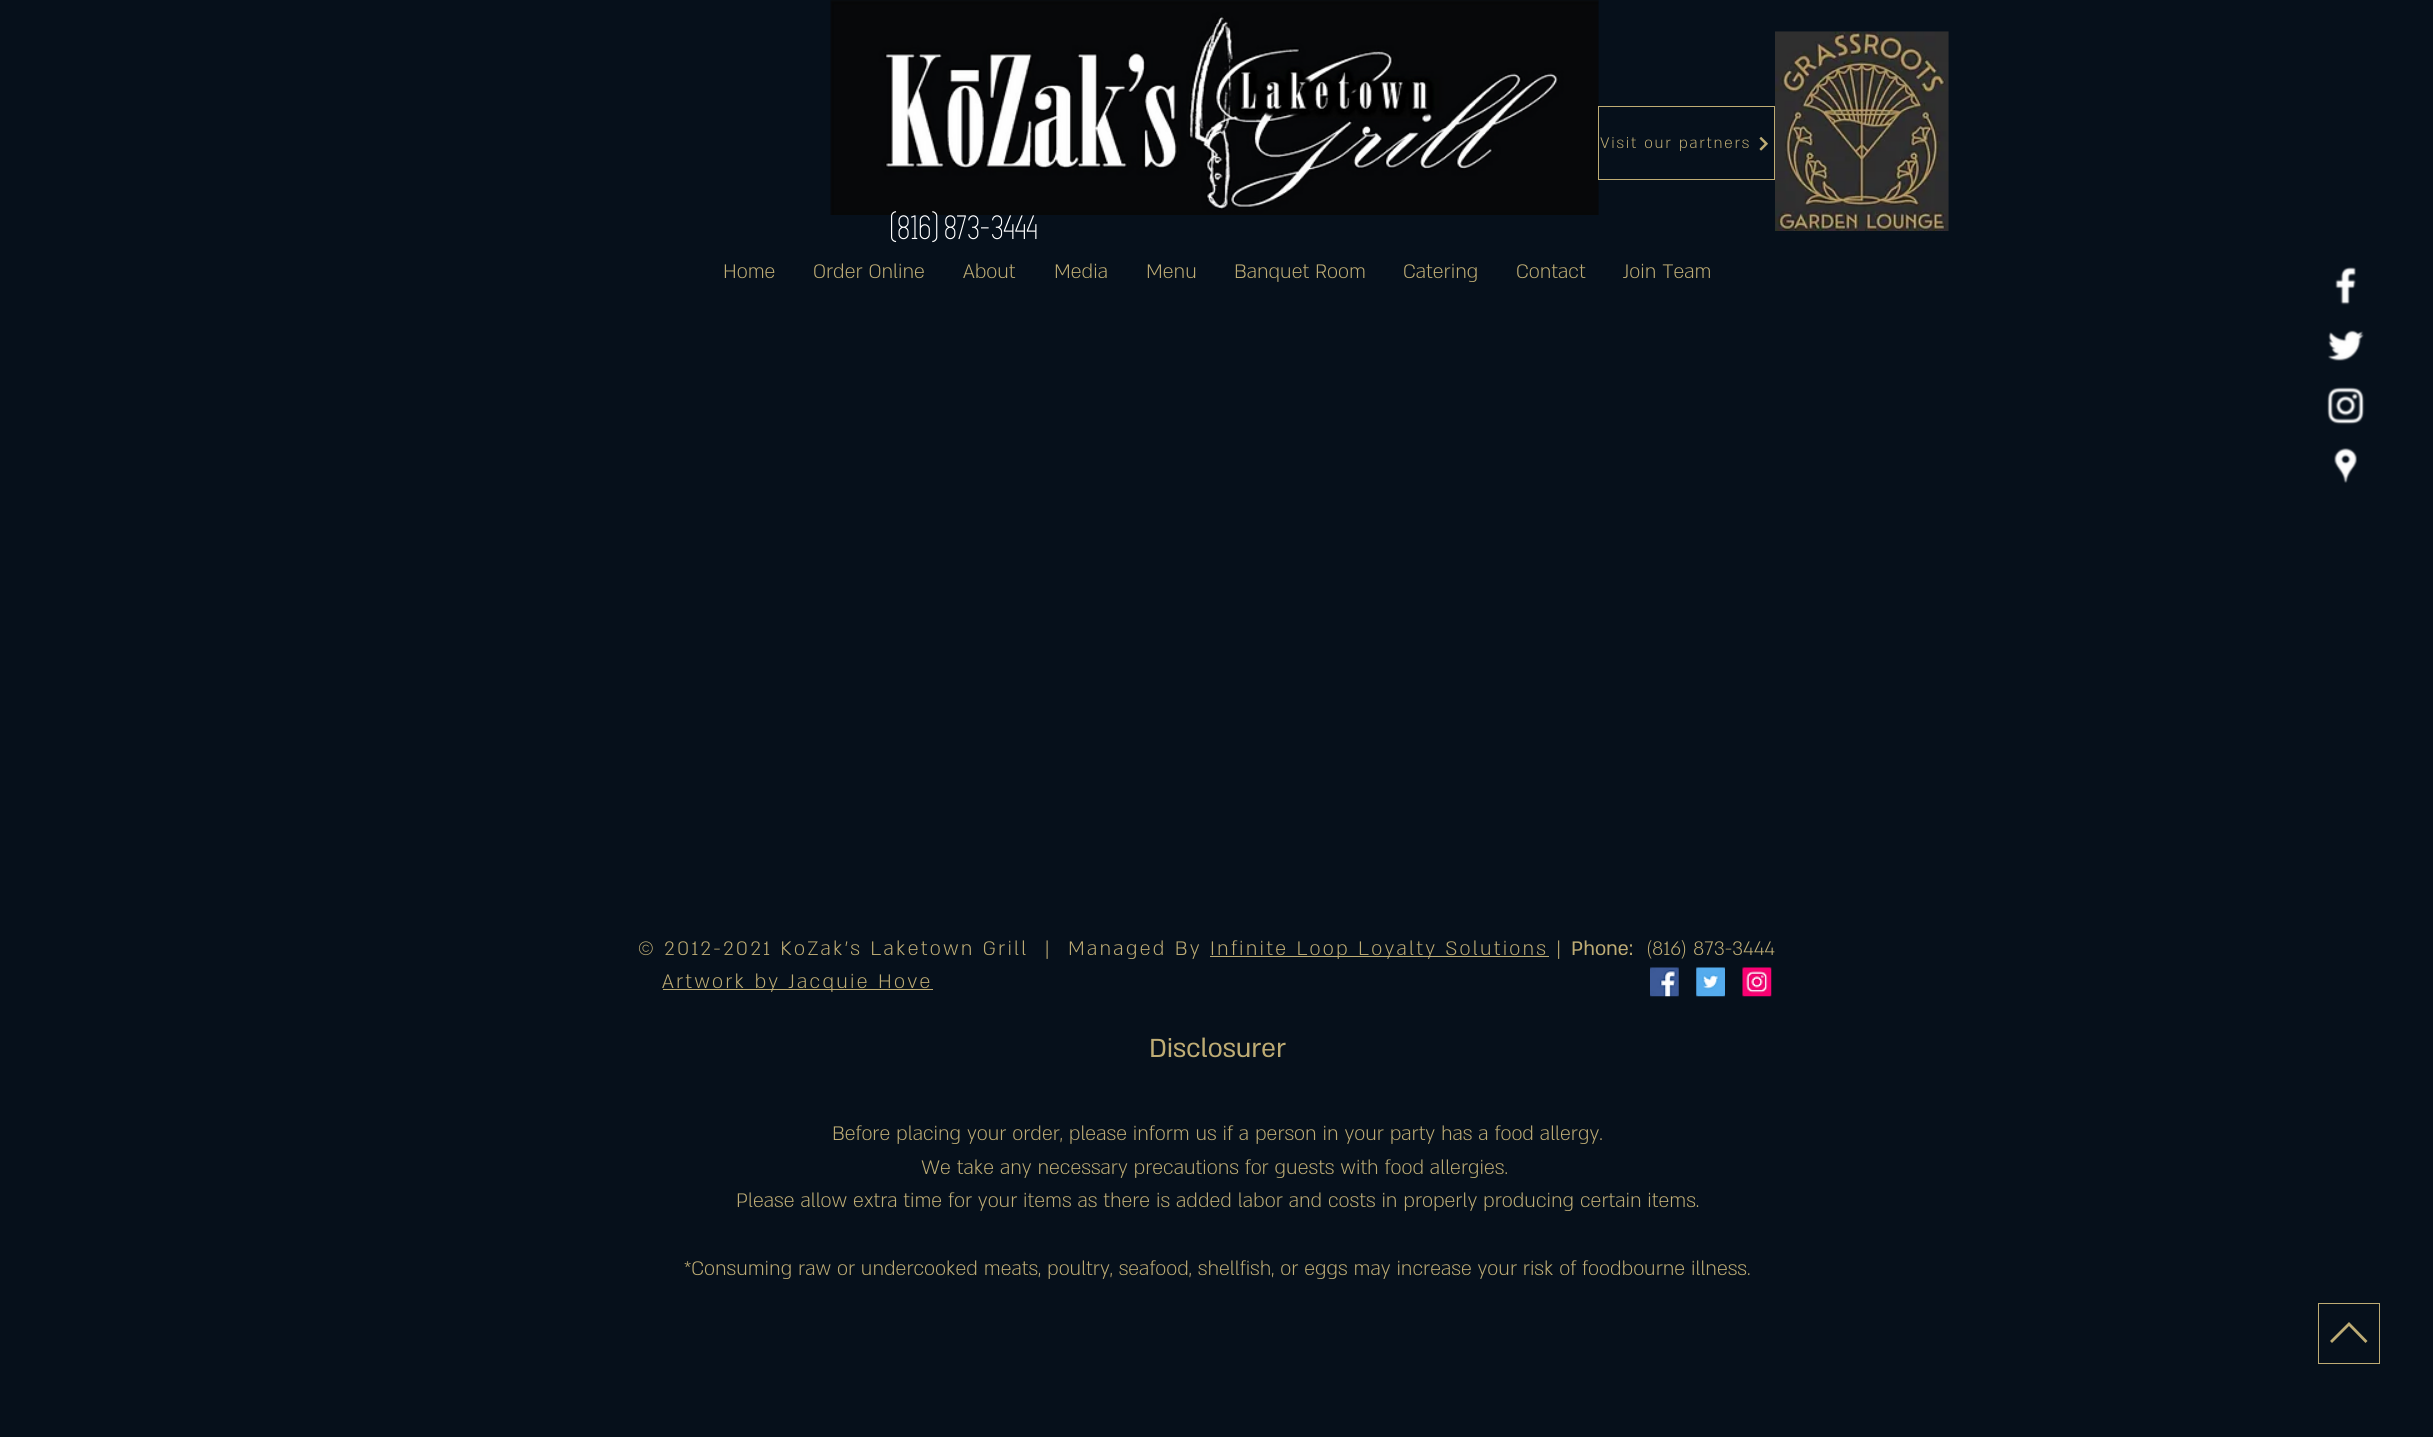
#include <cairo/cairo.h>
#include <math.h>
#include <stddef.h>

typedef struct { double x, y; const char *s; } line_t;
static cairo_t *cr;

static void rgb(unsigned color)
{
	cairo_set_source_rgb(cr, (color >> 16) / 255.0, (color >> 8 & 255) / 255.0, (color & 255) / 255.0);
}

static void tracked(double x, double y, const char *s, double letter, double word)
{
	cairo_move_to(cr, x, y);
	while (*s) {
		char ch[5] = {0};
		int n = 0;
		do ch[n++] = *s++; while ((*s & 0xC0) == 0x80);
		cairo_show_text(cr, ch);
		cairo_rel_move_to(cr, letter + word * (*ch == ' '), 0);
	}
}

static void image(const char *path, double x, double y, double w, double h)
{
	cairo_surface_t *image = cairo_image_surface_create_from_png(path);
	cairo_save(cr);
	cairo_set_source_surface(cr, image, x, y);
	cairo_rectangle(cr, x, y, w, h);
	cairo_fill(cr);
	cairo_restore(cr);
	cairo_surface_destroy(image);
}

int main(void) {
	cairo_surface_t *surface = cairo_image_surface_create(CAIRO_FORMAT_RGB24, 2433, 1437);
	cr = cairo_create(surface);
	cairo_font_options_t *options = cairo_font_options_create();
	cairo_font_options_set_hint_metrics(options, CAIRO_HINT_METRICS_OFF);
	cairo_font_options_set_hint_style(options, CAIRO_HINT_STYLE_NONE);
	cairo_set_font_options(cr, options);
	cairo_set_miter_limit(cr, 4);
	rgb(0x06101b);
	cairo_paint(cr);
	image("img/1.png", 830, 0, 769, 215);
	cairo_rectangle(cr, 1598.5, 106.5, 176, 73);
	rgb(0xbeac74);
	cairo_set_line_width(cr, 1);
	cairo_stroke(cr);
	image("img/2.png", 1759, 136, 9, 15);
	image("img/3.png", 1775, 31, 174, 200);
	image("img/4.png", 2335, 267, 21, 38);
	image("img/5.png", 2328, 330, 36, 31);
	image("img/6.png", 2327, 387, 38, 38);
	image("img/7.png", 2334, 448, 23, 35);
	cairo_rectangle(cr, 1210, 956, 339, 1);
	cairo_fill(cr);
	cairo_rectangle(cr, 663, 989, 270, 1);
	cairo_fill(cr);
	image("img/8.png", 1650, 967, 29, 30);
	image("img/9.png", 1696, 967, 29, 30);
	image("img/10.png", 1742, 967, 30, 30);
	cairo_rectangle(cr, 2318.5, 1303.5, 61, 60);
	cairo_stroke(cr);
	cairo_new_path(cr);
	cairo_move_to(cr, 2330, 1341);
	cairo_line_to(cr, 2332, 1343);
	cairo_line_to(cr, 2349, 1326);
	cairo_line_to(cr, 2365.5, 1343);
	cairo_line_to(cr, 2367.5, 1341);
	cairo_line_to(cr, 2349, 1322);
	cairo_close_path(cr);
	cairo_fill(cr);
	cairo_select_font_face(cr, "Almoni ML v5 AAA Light", CAIRO_FONT_SLANT_NORMAL, CAIRO_FONT_WEIGHT_NORMAL);
	cairo_set_font_size(cr, 17.5);
	tracked(1600, 148, "Visit our partners", 1.75, 0);
	cairo_select_font_face(cr, "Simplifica", CAIRO_FONT_SLANT_NORMAL, CAIRO_FONT_WEIGHT_NORMAL);
	cairo_set_font_size(cr, 35);
	rgb(0xffffff);
	cairo_move_to(cr, 891, 239);
	cairo_show_text(cr, "(816) 873-3444");
	cairo_select_font_face(cr, "Almoni ML v5 AAA Light", CAIRO_FONT_SLANT_NORMAL, CAIRO_FONT_WEIGHT_NORMAL);
	cairo_set_font_size(cr, 22.5);
	rgb(0xbeac74);
	{
		static const line_t items[] = {
			{723, 278, "Home"},
			{813, 278, "Order Online"},
			{963, 278, "About"},
			{1054, 278, "Media"},
			{1146, 278, "Menu"},
			{1234, 278, "Banquet Room"},
			{1403, 278, "Catering"},
			{1516, 278, "Contact"},
			{1623, 278, "Join Team"},
		};
		for (size_t i = 0; i < sizeof items / sizeof *items; i++) {
			cairo_move_to(cr, items[i].x, items[i].y);
			cairo_show_text(cr, items[i].s);
		}
	}
	tracked(638, 955, "© 2012-2021 KoZak's Laketown Grill  |  Managed By", 2.25, 0);
	tracked(1210, 955, "Infinite Loop Loyalty Solutions |", 2.25, 0);
	cairo_select_font_face(cr, "Almoni ML v5 AAA", CAIRO_FONT_SLANT_NORMAL, CAIRO_FONT_WEIGHT_NORMAL);
	cairo_move_to(cr, 1571, 955);
	cairo_show_text(cr, "Phone:");
	cairo_select_font_face(cr, "Almoni ML v5 AAA Light", CAIRO_FONT_SLANT_NORMAL, CAIRO_FONT_WEIGHT_NORMAL);
	cairo_move_to(cr, 1646, 955);
	cairo_show_text(cr, "(816) 873-3444");
	tracked(662, 988, "Artwork by Jacquie Hove", 2.25, 0);
	cairo_select_font_face(cr, "Almoni ML v5 AAA", CAIRO_FONT_SLANT_NORMAL, CAIRO_FONT_WEIGHT_NORMAL);
	cairo_set_font_size(cr, 30);
	cairo_move_to(cr, 1149, 1057);
	cairo_show_text(cr, "Disclosurer");
	cairo_select_font_face(cr, "Almoni ML v5 AAA Light", CAIRO_FONT_SLANT_NORMAL, CAIRO_FONT_WEIGHT_NORMAL);
	cairo_set_font_size(cr, 22.5);
	{
		static const line_t items[] = {
			{832, 1140, "Before placing your order, please inform us if a person in your party has a food allergy."},
			{921, 1174, "We take any necessary precautions for guests with food allergies."},
			{736, 1207, "Please allow extra time for your items as there is added labor and costs in properly producing certain items."},
			{684, 1275, "*Consuming raw or undercooked meats, poultry, seafood, shellfish, or eggs may increase your risk of foodbourne illness."},
		};
		for (size_t i = 0; i < sizeof items / sizeof *items; i++) {
			cairo_move_to(cr, items[i].x, items[i].y);
			cairo_show_text(cr, items[i].s);
		}
	}
	cairo_surface_write_to_png(surface, "page.png");
	cairo_font_options_destroy(options);
	cairo_destroy(cr);
	cairo_surface_destroy(surface);
	return 0;
}
